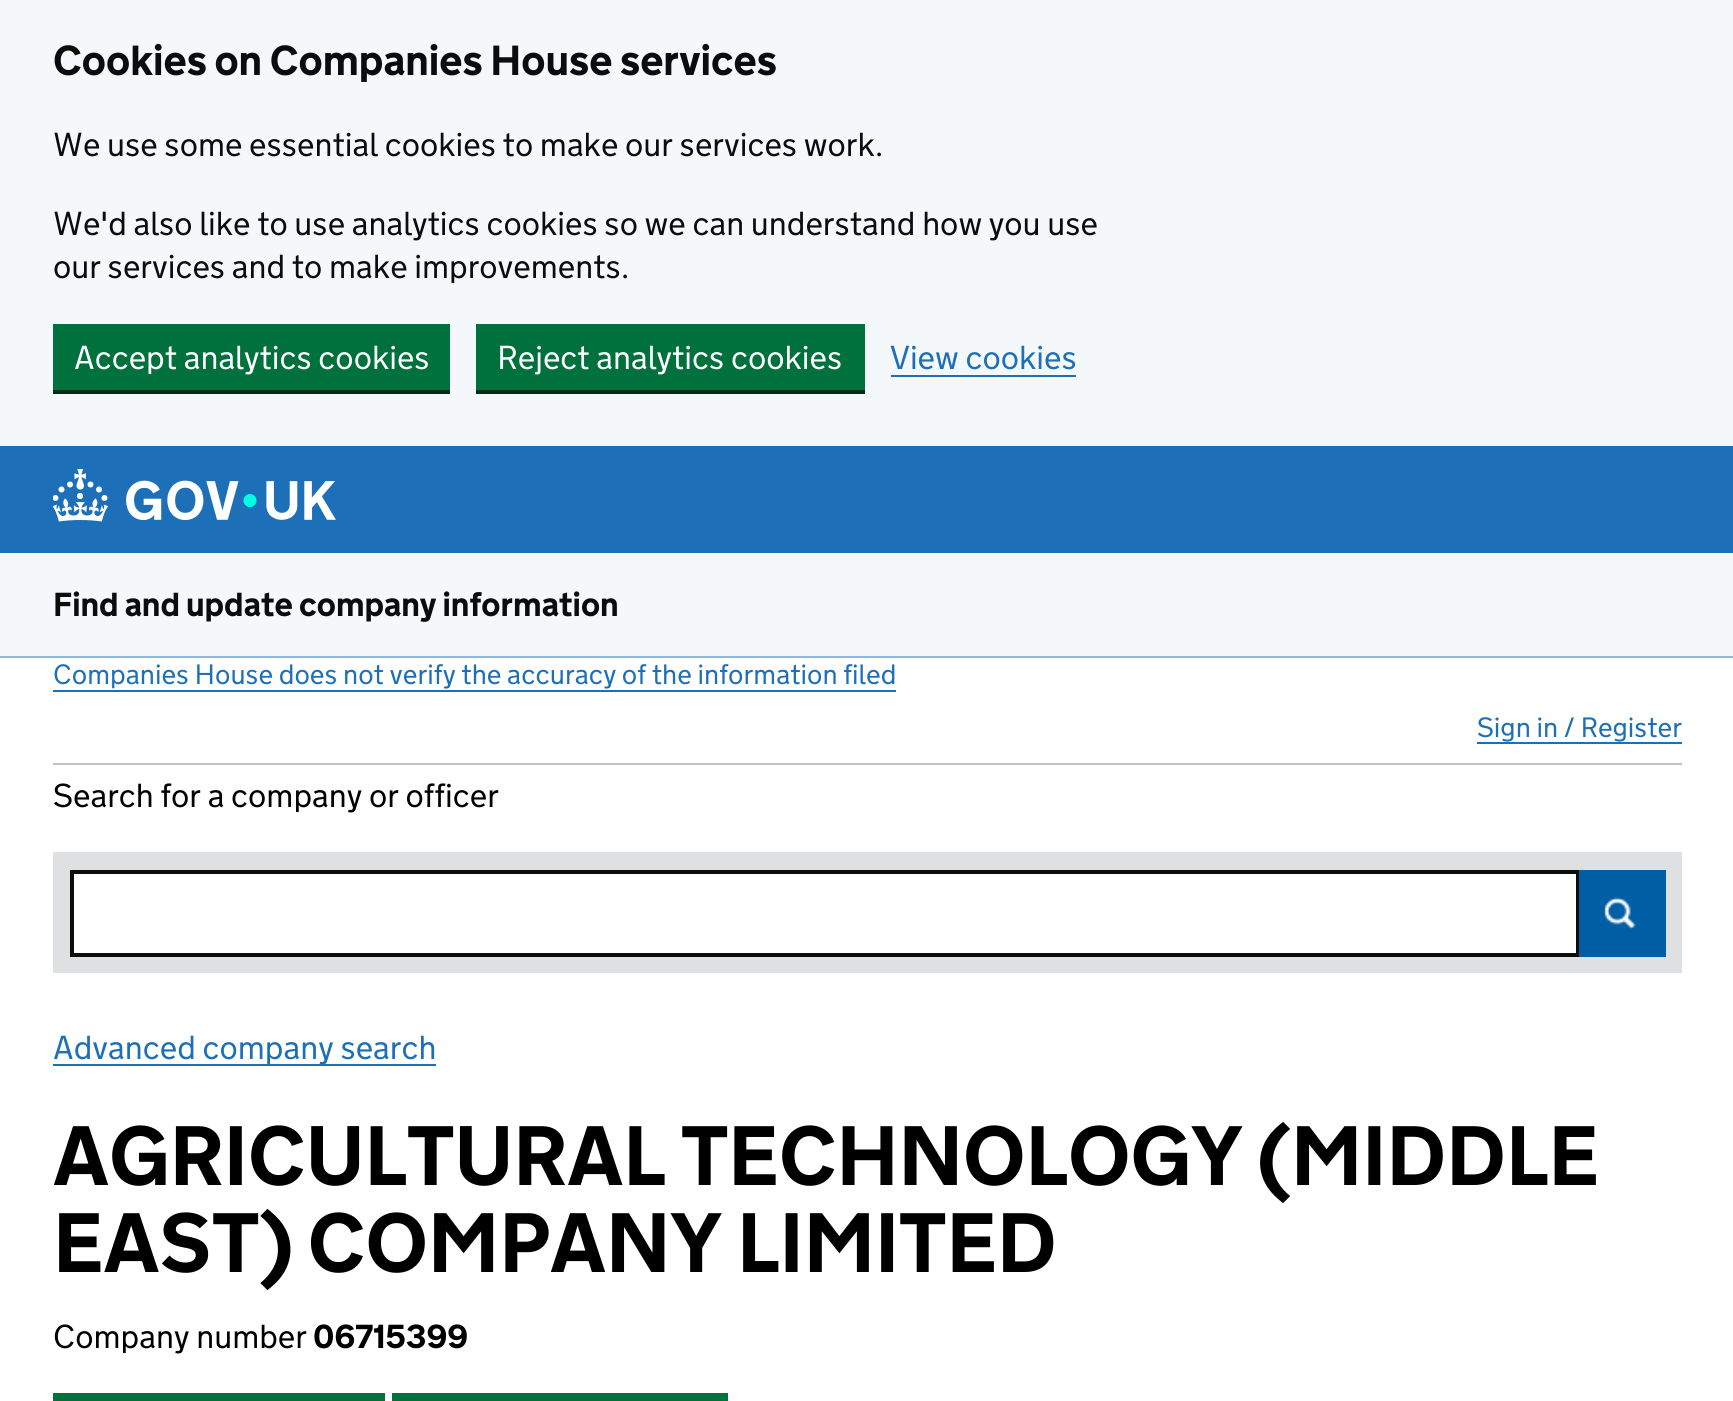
#include <cairo/cairo.h>
#include <math.h>
#include <stddef.h>

typedef struct { double x, y; const char *s; } line_t;
typedef struct { double x, y, w, h; unsigned color; } box_t;
static cairo_t *cr;

static void rgb(unsigned color)
{
	cairo_set_source_rgb(cr, (color >> 16) / 255.0, (color >> 8 & 255) / 255.0, (color & 255) / 255.0);
}

static void image(const char *path, double x, double y, double w, double h)
{
	cairo_surface_t *image = cairo_image_surface_create_from_png(path);
	cairo_save(cr);
	cairo_set_source_surface(cr, image, x, y);
	cairo_rectangle(cr, x, y, w, h);
	cairo_fill(cr);
	cairo_restore(cr);
	cairo_surface_destroy(image);
}

int main(void) {
	cairo_surface_t *surface = cairo_image_surface_create(CAIRO_FORMAT_RGB24, 1733, 1401);
	cr = cairo_create(surface);
	cairo_font_options_t *options = cairo_font_options_create();
	cairo_font_options_set_hint_metrics(options, CAIRO_HINT_METRICS_OFF);
	cairo_font_options_set_hint_style(options, CAIRO_HINT_STYLE_NONE);
	cairo_set_font_options(cr, options);
	cairo_set_miter_limit(cr, 4);
	rgb(0xffffff);
	cairo_paint(cr);
	rgb(0xf4f8fb);
	cairo_rectangle(cr, 0, 0, 1733, 446);
	cairo_fill(cr);
	rgb(0x002d18);
	cairo_new_path(cr);
	cairo_move_to(cr, 53, 390);
	cairo_line_to(cr, 53, 394);
	cairo_line_to(cr, 450, 394);
	cairo_line_to(cr, 450, 327);
	cairo_line_to(cr, 450, 390);
	cairo_close_path(cr);
	cairo_fill(cr);
	rgb(0x00703c);
	cairo_rectangle(cr, 53, 324, 397, 66);
	cairo_fill(cr);
	rgb(0x002d18);
	cairo_new_path(cr);
	cairo_move_to(cr, 476, 390);
	cairo_line_to(cr, 476, 394);
	cairo_line_to(cr, 865, 394);
	cairo_line_to(cr, 865, 327);
	cairo_line_to(cr, 864, 327);
	cairo_line_to(cr, 864, 390);
	cairo_close_path(cr);
	cairo_fill(cr);
	{
		static const box_t items[] = {
			{476, 324, 389, 66, 0x00703c},
			{891, 375, 185, 2, 0x1d70b8},
			{0, 446, 1733, 107, 0x1d70b8},
		};
		for (size_t i = 0; i < sizeof items / sizeof *items; i++) {
			rgb(items[i].color);
			cairo_rectangle(cr, items[i].x, items[i].y, items[i].w, items[i].h);
			cairo_fill(cr);
		}
	}
	image("img/1.png", 53, 469, 283, 53);
	{
		static const box_t items[] = {
			{0, 553, 1733, 103, 0xf4f8fb},
			{0, 656, 1733, 2, 0x8eb8dc},
			{53, 690, 843, 2, 0x1d70b8},
			{53, 763, 1629, 2, 0xbfc1c3},
			{1477, 742, 205, 2, 0x1d70b8},
			{53, 852, 1629, 121, 0xdee0e2},
		};
		for (size_t i = 0; i < sizeof items / sizeof *items; i++) {
			rgb(items[i].color);
			cairo_rectangle(cr, items[i].x, items[i].y, items[i].w, items[i].h);
			cairo_fill(cr);
		}
	}
	rgb(0xffffff);
	cairo_rectangle(cr, 72, 872, 1506, 83);
	cairo_fill_preserve(cr);
	rgb(0x0b0c0c);
	cairo_set_line_width(cr, 4);
	cairo_stroke(cr);
	rgb(0x005ea5);
	cairo_rectangle(cr, 1579, 870, 87, 87);
	cairo_fill(cr);
	image("img/2.png", 1604, 897, 32, 33);
	{
		static const box_t items[] = {
			{53, 1064, 383, 2, 0x1d70b8},
			{53, 1393, 332, 8, 0x00703c},
			{392, 1393, 336, 8, 0x00703c},
		};
		for (size_t i = 0; i < sizeof items / sizeof *items; i++) {
			rgb(items[i].color);
			cairo_rectangle(cr, items[i].x, items[i].y, items[i].w, items[i].h);
			cairo_fill(cr);
		}
	}
	cairo_select_font_face(cr, "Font", CAIRO_FONT_SLANT_NORMAL, CAIRO_FONT_WEIGHT_BOLD);
	cairo_set_font_size(cr, 42);
	rgb(0x0b0c0c);
	cairo_move_to(cr, 53, 75);
	cairo_show_text(cr, "Cookies on Companies House services");
	cairo_select_font_face(cr, "Font Light", CAIRO_FONT_SLANT_NORMAL, CAIRO_FONT_WEIGHT_NORMAL);
	cairo_set_font_size(cr, 33.25);
	{
		static const line_t items[] = {
			{53, 156, "We use some essential cookies to make our services work."},
			{53, 235, "We'd also like to use analytics cookies so we can understand how you use"},
			{53, 278, "our services and to make improvements."},
		};
		for (size_t i = 0; i < sizeof items / sizeof *items; i++) {
			cairo_move_to(cr, items[i].x, items[i].y);
			cairo_show_text(cr, items[i].s);
		}
	}
	rgb(0xffffff);
	cairo_move_to(cr, 74, 369);
	cairo_show_text(cr, "Accept analytics cookies");
	cairo_move_to(cr, 497, 369);
	cairo_show_text(cr, "Reject analytics cookies");
	rgb(0x1d70b8);
	cairo_move_to(cr, 890, 369);
	cairo_show_text(cr, "View cookies");
	cairo_select_font_face(cr, "Font", CAIRO_FONT_SLANT_NORMAL, CAIRO_FONT_WEIGHT_BOLD);
	rgb(0x0b0c0c);
	cairo_move_to(cr, 53, 616);
	cairo_show_text(cr, "Find and update company information");
	cairo_select_font_face(cr, "Font Light", CAIRO_FONT_SLANT_NORMAL, CAIRO_FONT_WEIGHT_NORMAL);
	cairo_set_font_size(cr, 28);
	rgb(0x1d70b8);
	cairo_move_to(cr, 53, 684);
	cairo_show_text(cr, "Companies House does not verify the accuracy of the information filed");
	cairo_move_to(cr, 1477, 737);
	cairo_show_text(cr, "Sign in / Register");
	cairo_set_font_size(cr, 33.25);
	rgb(0x000000);
	cairo_move_to(cr, 53, 807);
	cairo_show_text(cr, "Search for a company or officer");
	rgb(0x1d70b8);
	cairo_move_to(cr, 53, 1059);
	cairo_show_text(cr, "Advanced company search");
	cairo_select_font_face(cr, "Font", CAIRO_FONT_SLANT_NORMAL, CAIRO_FONT_WEIGHT_BOLD);
	cairo_set_font_size(cr, 84);
	rgb(0x000000);
	cairo_move_to(cr, 53, 1185);
	cairo_show_text(cr, "AGRICULTURAL TECHNOLOGY (MIDDLE");
	cairo_move_to(cr, 53, 1272);
	cairo_show_text(cr, "EAST) COMPANY LIMITED");
	cairo_select_font_face(cr, "Font Light", CAIRO_FONT_SLANT_NORMAL, CAIRO_FONT_WEIGHT_NORMAL);
	cairo_set_font_size(cr, 33.25);
	cairo_move_to(cr, 53, 1348);
	cairo_show_text(cr, "Company number");
	cairo_select_font_face(cr, "Font", CAIRO_FONT_SLANT_NORMAL, CAIRO_FONT_WEIGHT_BOLD);
	cairo_move_to(cr, 313, 1348);
	cairo_show_text(cr, "06715399");
	cairo_surface_write_to_png(surface, "page.png");
	cairo_font_options_destroy(options);
	cairo_destroy(cr);
	cairo_surface_destroy(surface);
	return 0;
}
